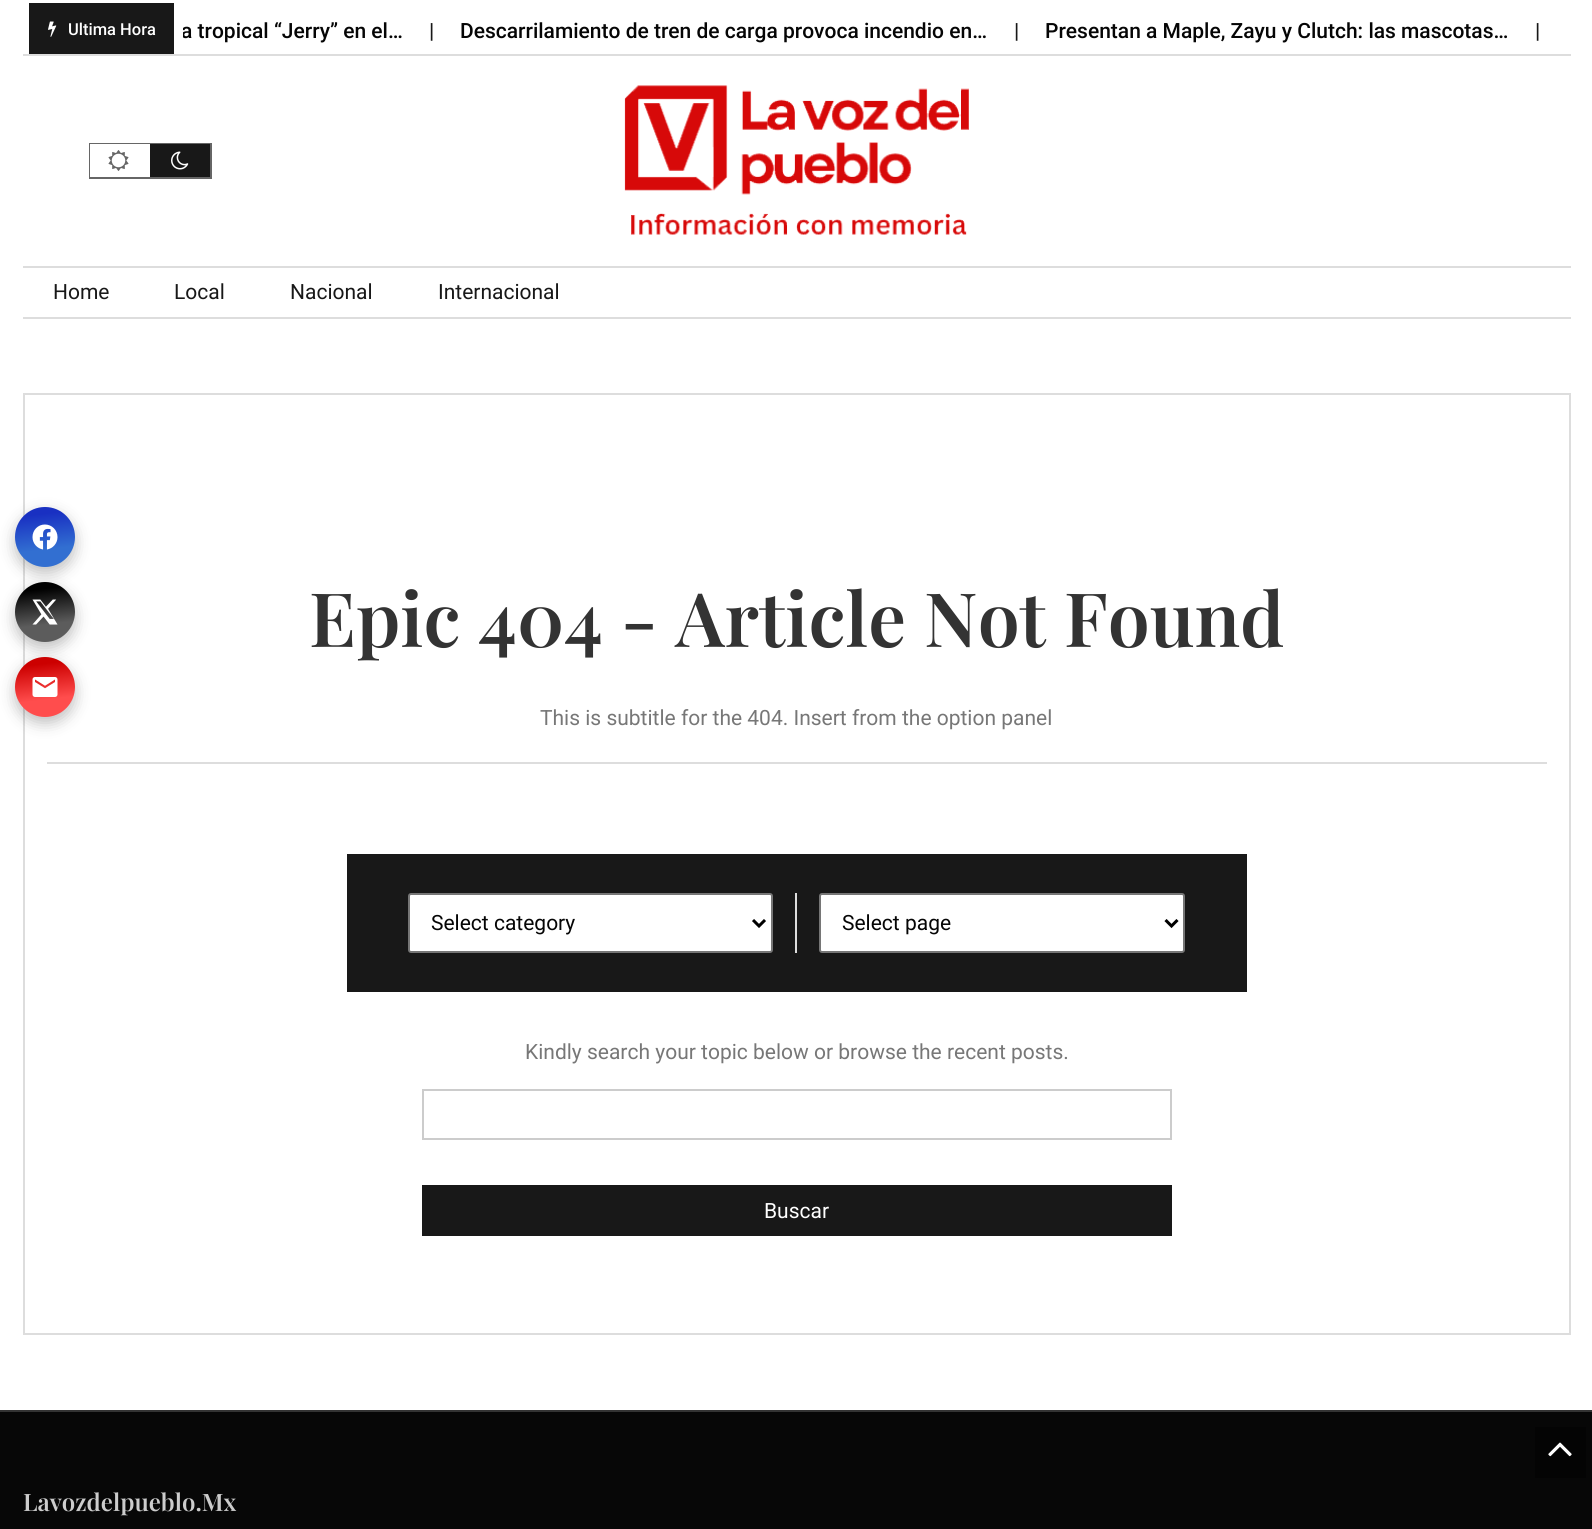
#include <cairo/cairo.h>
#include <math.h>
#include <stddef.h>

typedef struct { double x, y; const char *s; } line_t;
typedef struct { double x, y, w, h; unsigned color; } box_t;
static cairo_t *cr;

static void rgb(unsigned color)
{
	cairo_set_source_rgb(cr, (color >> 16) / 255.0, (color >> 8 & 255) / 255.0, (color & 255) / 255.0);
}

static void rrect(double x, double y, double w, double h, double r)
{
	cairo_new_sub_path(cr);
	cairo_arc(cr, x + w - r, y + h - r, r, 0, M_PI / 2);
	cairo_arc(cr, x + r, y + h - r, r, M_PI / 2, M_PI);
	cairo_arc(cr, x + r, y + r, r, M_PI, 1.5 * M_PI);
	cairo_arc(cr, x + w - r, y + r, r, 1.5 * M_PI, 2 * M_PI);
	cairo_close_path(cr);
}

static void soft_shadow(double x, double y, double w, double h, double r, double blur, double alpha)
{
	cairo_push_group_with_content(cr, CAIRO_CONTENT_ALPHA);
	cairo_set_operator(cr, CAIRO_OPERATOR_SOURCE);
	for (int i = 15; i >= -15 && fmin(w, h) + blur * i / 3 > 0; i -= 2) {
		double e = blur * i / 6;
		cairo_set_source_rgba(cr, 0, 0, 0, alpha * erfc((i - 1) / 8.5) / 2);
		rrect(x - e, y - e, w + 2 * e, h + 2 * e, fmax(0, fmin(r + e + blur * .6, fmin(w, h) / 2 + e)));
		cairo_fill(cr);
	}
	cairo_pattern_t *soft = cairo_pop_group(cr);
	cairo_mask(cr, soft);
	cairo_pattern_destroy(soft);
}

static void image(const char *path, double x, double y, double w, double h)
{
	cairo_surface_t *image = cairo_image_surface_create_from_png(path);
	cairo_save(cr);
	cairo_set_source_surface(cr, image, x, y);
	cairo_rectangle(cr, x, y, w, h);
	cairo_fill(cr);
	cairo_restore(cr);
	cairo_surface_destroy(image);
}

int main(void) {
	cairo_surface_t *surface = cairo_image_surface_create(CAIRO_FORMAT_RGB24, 1592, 1529);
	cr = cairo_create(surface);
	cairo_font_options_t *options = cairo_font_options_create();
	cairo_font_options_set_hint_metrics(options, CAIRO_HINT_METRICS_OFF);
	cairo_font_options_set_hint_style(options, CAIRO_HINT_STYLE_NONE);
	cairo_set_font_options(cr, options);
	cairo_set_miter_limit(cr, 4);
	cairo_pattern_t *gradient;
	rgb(0xffffff);
	cairo_paint(cr);
	rgb(0xdddddd);
	cairo_rectangle(cr, 23, 54, 1548, 2);
	cairo_fill(cr);
	rgb(0x181818);
	cairo_rectangle(cr, 29, 3, 145, 51);
	cairo_fill(cr);
	image("img/1.png", 48, 21, 9, 16);
	cairo_rectangle(cr, 90, 144, 121, 34);
	rgb(0x666666);
	cairo_stroke(cr);
	rgb(0xffffff);
	cairo_rectangle(cr, 90, 144, 60, 33);
	cairo_fill(cr);
	image("img/2.png", 108, 150, 21, 21);
	rgb(0x181818);
	cairo_rectangle(cr, 150, 144, 60, 33);
	cairo_fill(cr);
	image("img/3.png", 171, 151, 18, 19);
	image("img/4.png", 624, 85, 345, 150);
	rgb(0xdddddd);
	cairo_rectangle(cr, 23, 266, 1548, 2);
	cairo_fill(cr);
	cairo_rectangle(cr, 23, 317, 1548, 2);
	cairo_fill(cr);
	cairo_rectangle(cr, 24, 394, 1546, 940);
	cairo_stroke(cr);
	rgb(0x000000);
	soft_shadow(15, 513, 60, 60, 30, 7.5, 0.25);
	gradient = cairo_pattern_create_linear(41, 504, 49, 570);
	cairo_pattern_add_color_stop_rgba(gradient, 0.15, 0.098, 0.188, 0.761, 1);
	cairo_pattern_add_color_stop_rgba(gradient, 0.69, 0.196, 0.435, 0.82, 1);
	cairo_set_source(cr, gradient);
	cairo_pattern_destroy(gradient);
	cairo_arc(cr, 45, 537, 30, 0, 2 * M_PI);
	cairo_fill(cr);
	image("img/5.png", 32, 524, 26, 26);
	rgb(0x000000);
	soft_shadow(15, 588, 60, 60, 30, 7.5, 0.25);
	gradient = cairo_pattern_create_linear(41, 579, 49, 645);
	cairo_pattern_add_color_stop_rgba(gradient, 0.15, 0, 0, 0, 1);
	cairo_pattern_add_color_stop_rgba(gradient, 0.69, 0.361, 0.361, 0.361, 1);
	cairo_set_source(cr, gradient);
	cairo_pattern_destroy(gradient);
	cairo_arc(cr, 45, 612, 30, 0, 2 * M_PI);
	cairo_fill(cr);
	image("img/6.png", 32, 599, 26, 26);
	rgb(0x000000);
	soft_shadow(15, 663, 60, 60, 30, 7.5, 0.25);
	gradient = cairo_pattern_create_linear(41, 654, 49, 720);
	cairo_pattern_add_color_stop_rgba(gradient, 0.15, 0.8, 0, 0, 1);
	cairo_pattern_add_color_stop_rgba(gradient, 0.69, 1, 0.302, 0.302, 1);
	cairo_set_source(cr, gradient);
	cairo_pattern_destroy(gradient);
	cairo_arc(cr, 45, 687, 30, 0, 2 * M_PI);
	cairo_fill(cr);
	image("img/7.png", 32, 677, 26, 20);
	{
		static const box_t items[] = {
			{47, 762, 1500, 2, 0xdddddd},
			{347, 854, 900, 138, 0x181818},
			{795, 893, 2, 60, 0xdddddd},
		};
		for (size_t i = 0; i < sizeof items / sizeof *items; i++) {
			rgb(items[i].color);
			cairo_rectangle(cr, items[i].x, items[i].y, items[i].w, items[i].h);
			cairo_fill(cr);
		}
	}
	rgb(0xffffff);
	rrect(409, 894, 363, 58, 2);
	cairo_fill_preserve(cr);
	rgb(0x767676);
	cairo_stroke(cr);
	cairo_new_path(cr);
	cairo_move_to(cr, 753, 920);
	cairo_line_to(cr, 759, 926);
	cairo_line_to(cr, 765, 920);
	rgb(0x000000);
	cairo_set_line_width(cr, 3);
	cairo_stroke(cr);
	rgb(0xffffff);
	rrect(820, 894, 364, 58, 2);
	cairo_fill_preserve(cr);
	rgb(0x767676);
	cairo_set_line_width(cr, 2);
	cairo_stroke(cr);
	cairo_new_path(cr);
	cairo_move_to(cr, 1165.5, 920);
	cairo_line_to(cr, 1171.5, 926);
	cairo_line_to(cr, 1177.5, 920);
	rgb(0x000000);
	cairo_set_line_width(cr, 3);
	cairo_stroke(cr);
	cairo_rectangle(cr, 423, 1090, 748, 49);
	rgb(0xcccccc);
	cairo_set_line_width(cr, 2);
	cairo_stroke(cr);
	{
		static const box_t items[] = {
			{422, 1185, 750, 51, 0x181818},
			{0, 1412, 1592, 117, 0x070707},
			{0, 1410, 1592, 2, 0x333333},
			{1535, 1427, 51, 51, 0x040404},
		};
		for (size_t i = 0; i < sizeof items / sizeof *items; i++) {
			rgb(items[i].color);
			cairo_rectangle(cr, items[i].x, items[i].y, items[i].w, items[i].h);
			cairo_fill(cr);
		}
	}
	image("img/8.png", 1548, 1442, 24, 15);
	cairo_select_font_face(cr, "Roboto Medium", CAIRO_FONT_SLANT_NORMAL, CAIRO_FONT_WEIGHT_NORMAL);
	cairo_set_font_size(cr, 16.5);
	rgb(0xffffff);
	cairo_move_to(cr, 68, 35);
	cairo_show_text(cr, "Ultima Hora");
	cairo_set_font_size(cr, 21);
	rgb(0x050505);
	cairo_move_to(cr, 181, 38);
	cairo_show_text(cr, "a tropical “Jerry” en el…");
	rgb(0xffffff);
	cairo_rectangle(cr, 181, 28, 2, 10);
	cairo_fill(cr);
	rgb(0x181818);
	cairo_move_to(cr, 429, 38);
	cairo_show_text(cr, "|");
	rgb(0x050505);
	cairo_move_to(cr, 460, 38);
	cairo_show_text(cr, "Descarrilamiento de tren de carga provoca incendio en…");
	rgb(0x181818);
	cairo_move_to(cr, 1014, 38);
	cairo_show_text(cr, "|");
	rgb(0x050505);
	cairo_move_to(cr, 1045, 38);
	cairo_show_text(cr, "Presentan a Maple, Zayu y Clutch: las mascotas…");
	rgb(0x181818);
	cairo_move_to(cr, 1535, 38);
	cairo_show_text(cr, "|");
	cairo_select_font_face(cr, "Roboto", CAIRO_FONT_SLANT_NORMAL, CAIRO_FONT_WEIGHT_NORMAL);
	{
		static const line_t items[] = {
			{53, 299, "Home"},
			{174, 299, "Local"},
			{290, 299, "Nacional"},
			{438, 299, "Internacional"},
		};
		for (size_t i = 0; i < sizeof items / sizeof *items; i++) {
			cairo_move_to(cr, items[i].x, items[i].y);
			cairo_show_text(cr, items[i].s);
		}
	}
	cairo_select_font_face(cr, "Playfair Display SemiBold", CAIRO_FONT_SLANT_NORMAL, CAIRO_FONT_WEIGHT_NORMAL);
	cairo_set_font_size(cr, 75);
	rgb(0x333333);
	cairo_move_to(cr, 309, 647);
	cairo_show_text(cr, "Epic 404 - Article Not Found");
	cairo_select_font_face(cr, "Roboto", CAIRO_FONT_SLANT_NORMAL, CAIRO_FONT_WEIGHT_NORMAL);
	cairo_set_font_size(cr, 21);
	rgb(0x777777);
	cairo_move_to(cr, 540, 725);
	cairo_show_text(cr, "This is subtitle for the 404. Insert from the option panel");
	rgb(0x050505);
	cairo_move_to(cr, 431, 930);
	cairo_show_text(cr, "Select category");
	cairo_move_to(cr, 842, 930);
	cairo_show_text(cr, "Select page");
	rgb(0x777777);
	cairo_move_to(cr, 525, 1059);
	cairo_show_text(cr, "Kindly search your topic below or browse the recent posts.");
	rgb(0xffffff);
	cairo_move_to(cr, 764, 1218);
	cairo_show_text(cr, "Buscar");
	cairo_select_font_face(cr, "Playfair Display SemiBold", CAIRO_FONT_SLANT_NORMAL, CAIRO_FONT_WEIGHT_NORMAL);
	cairo_set_font_size(cr, 24);
	rgb(0xcccccc);
	cairo_move_to(cr, 23, 1511);
	cairo_show_text(cr, "Lavozdelpueblo.Mx");
	cairo_surface_write_to_png(surface, "page.png");
	cairo_font_options_destroy(options);
	cairo_destroy(cr);
	cairo_surface_destroy(surface);
	return 0;
}
